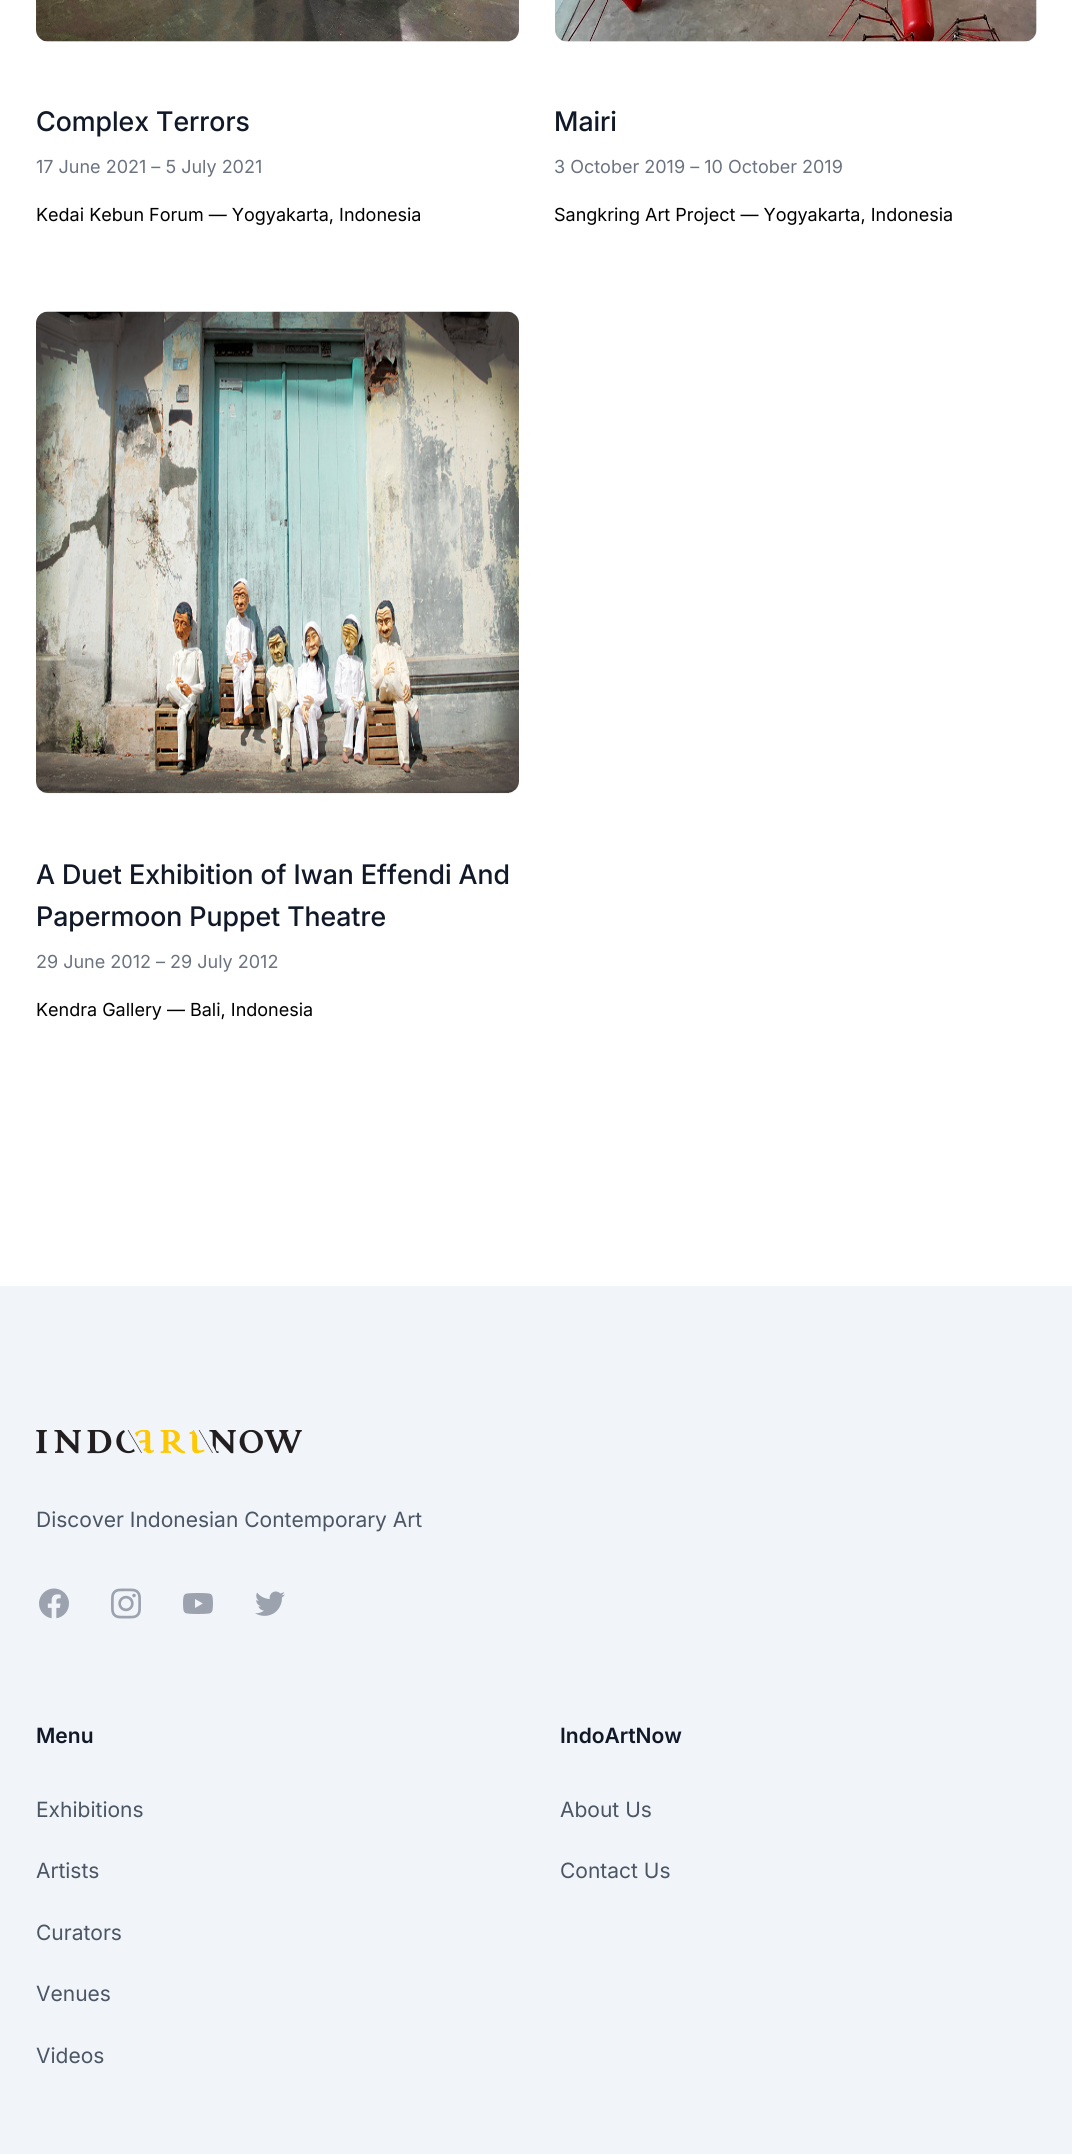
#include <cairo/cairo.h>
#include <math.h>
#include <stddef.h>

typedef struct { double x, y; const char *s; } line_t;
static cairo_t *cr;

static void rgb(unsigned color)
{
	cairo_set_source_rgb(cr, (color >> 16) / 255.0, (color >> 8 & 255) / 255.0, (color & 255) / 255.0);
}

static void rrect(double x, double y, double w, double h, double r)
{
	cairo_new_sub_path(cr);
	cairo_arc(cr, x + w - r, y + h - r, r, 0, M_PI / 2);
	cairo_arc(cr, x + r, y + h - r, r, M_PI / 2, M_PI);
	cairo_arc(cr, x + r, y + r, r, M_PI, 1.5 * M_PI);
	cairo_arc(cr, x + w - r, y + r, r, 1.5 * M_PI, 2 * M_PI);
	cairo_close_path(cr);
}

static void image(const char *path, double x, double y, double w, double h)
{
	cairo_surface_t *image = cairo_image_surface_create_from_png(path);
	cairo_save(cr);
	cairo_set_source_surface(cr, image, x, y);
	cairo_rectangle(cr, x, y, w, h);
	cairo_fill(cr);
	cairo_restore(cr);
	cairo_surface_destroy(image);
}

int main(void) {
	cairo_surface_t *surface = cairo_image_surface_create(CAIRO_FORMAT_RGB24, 1072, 2154);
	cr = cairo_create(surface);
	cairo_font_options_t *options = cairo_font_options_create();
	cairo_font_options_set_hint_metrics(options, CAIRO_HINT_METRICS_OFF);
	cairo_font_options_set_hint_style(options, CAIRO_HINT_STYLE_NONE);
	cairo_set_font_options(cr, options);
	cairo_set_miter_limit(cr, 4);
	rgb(0xffffff);
	cairo_paint(cr);
	rgb(0xf3f4f6);
	rrect(36, -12, 483, 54, 12);
	cairo_fill(cr);
	image("img/1.png", 36, 0, 483, 42);
	rrect(555, -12, 482, 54, 12);
	cairo_fill(cr);
	image("img/2.png", 555, 0, 482, 42);
	rrect(36, 312, 483, 482, 12);
	cairo_fill(cr);
	image("img/3.png", 36, 311, 483, 482);
	rgb(0xf1f5f9);
	cairo_rectangle(cr, 0, 1286, 1072, 868);
	cairo_fill(cr);
	image("img/4.png", 36, 1430, 266, 24);
	image("img/5.png", 39, 1588, 30, 31);
	image("img/6.png", 111, 1588, 30, 31);
	image("img/7.png", 183, 1593, 30, 21);
	image("img/8.png", 255, 1591, 30, 25);
	cairo_select_font_face(cr, "Inter Medium", CAIRO_FONT_SLANT_NORMAL, CAIRO_FONT_WEIGHT_NORMAL);
	cairo_set_font_size(cr, 27);
	rgb(0x111827);
	cairo_move_to(cr, 36, 131);
	cairo_show_text(cr, "Complex Terrors");
	cairo_select_font_face(cr, "Inter", CAIRO_FONT_SLANT_NORMAL, CAIRO_FONT_WEIGHT_NORMAL);
	cairo_set_font_size(cr, 18);
	rgb(0x6b7280);
	cairo_move_to(cr, 36, 173);
	cairo_show_text(cr, "17 June 2021 – 5 July 2021");
	rgb(0x000000);
	cairo_move_to(cr, 36, 221);
	cairo_show_text(cr, "Kedai Kebun Forum — Yogyakarta, Indonesia");
	cairo_select_font_face(cr, "Inter Medium", CAIRO_FONT_SLANT_NORMAL, CAIRO_FONT_WEIGHT_NORMAL);
	cairo_set_font_size(cr, 27);
	rgb(0x111827);
	cairo_move_to(cr, 554, 131);
	cairo_show_text(cr, "Mairi");
	cairo_select_font_face(cr, "Inter", CAIRO_FONT_SLANT_NORMAL, CAIRO_FONT_WEIGHT_NORMAL);
	cairo_set_font_size(cr, 18);
	rgb(0x6b7280);
	cairo_move_to(cr, 554, 173);
	cairo_show_text(cr, "3 October 2019 – 10 October 2019");
	rgb(0x000000);
	cairo_move_to(cr, 554, 221);
	cairo_show_text(cr, "Sangkring Art Project — Yogyakarta, Indonesia");
	cairo_select_font_face(cr, "Inter Medium", CAIRO_FONT_SLANT_NORMAL, CAIRO_FONT_WEIGHT_NORMAL);
	cairo_set_font_size(cr, 27);
	rgb(0x111827);
	cairo_move_to(cr, 36, 884);
	cairo_show_text(cr, "A Duet Exhibition of Iwan Effendi And");
	cairo_move_to(cr, 36, 926);
	cairo_show_text(cr, "Papermoon Puppet Theatre");
	cairo_select_font_face(cr, "Inter", CAIRO_FONT_SLANT_NORMAL, CAIRO_FONT_WEIGHT_NORMAL);
	cairo_set_font_size(cr, 18);
	rgb(0x6b7280);
	cairo_move_to(cr, 36, 968);
	cairo_show_text(cr, "29 June 2012 – 29 July 2012");
	rgb(0x000000);
	cairo_move_to(cr, 36, 1016);
	cairo_show_text(cr, "Kendra Gallery — Bali, Indonesia");
	cairo_set_font_size(cr, 21);
	rgb(0x4b5563);
	cairo_move_to(cr, 36, 1527);
	cairo_show_text(cr, "Discover Indonesian Contemporary Art");
	cairo_select_font_face(cr, "Inter SemiBold", CAIRO_FONT_SLANT_NORMAL, CAIRO_FONT_WEIGHT_NORMAL);
	rgb(0x111827);
	cairo_move_to(cr, 36, 1743);
	cairo_show_text(cr, "Menu");
	cairo_select_font_face(cr, "Inter", CAIRO_FONT_SLANT_NORMAL, CAIRO_FONT_WEIGHT_NORMAL);
	rgb(0x4b5563);
	{
		static const line_t items[] = {
			{36, 1817, "Exhibitions"},
			{36, 1878, "Artists"},
			{36, 1940, "Curators"},
			{36, 2001, "Venues"},
			{36, 2063, "Videos"},
		};
		for (size_t i = 0; i < sizeof items / sizeof *items; i++) {
			cairo_move_to(cr, items[i].x, items[i].y);
			cairo_show_text(cr, items[i].s);
		}
	}
	cairo_select_font_face(cr, "Inter SemiBold", CAIRO_FONT_SLANT_NORMAL, CAIRO_FONT_WEIGHT_NORMAL);
	rgb(0x111827);
	cairo_move_to(cr, 560, 1743);
	cairo_show_text(cr, "IndoArtNow");
	cairo_select_font_face(cr, "Inter", CAIRO_FONT_SLANT_NORMAL, CAIRO_FONT_WEIGHT_NORMAL);
	rgb(0x4b5563);
	cairo_move_to(cr, 560, 1817);
	cairo_show_text(cr, "About Us");
	cairo_move_to(cr, 560, 1878);
	cairo_show_text(cr, "Contact Us");
	cairo_surface_write_to_png(surface, "page.png");
	cairo_font_options_destroy(options);
	cairo_destroy(cr);
	cairo_surface_destroy(surface);
	return 0;
}
